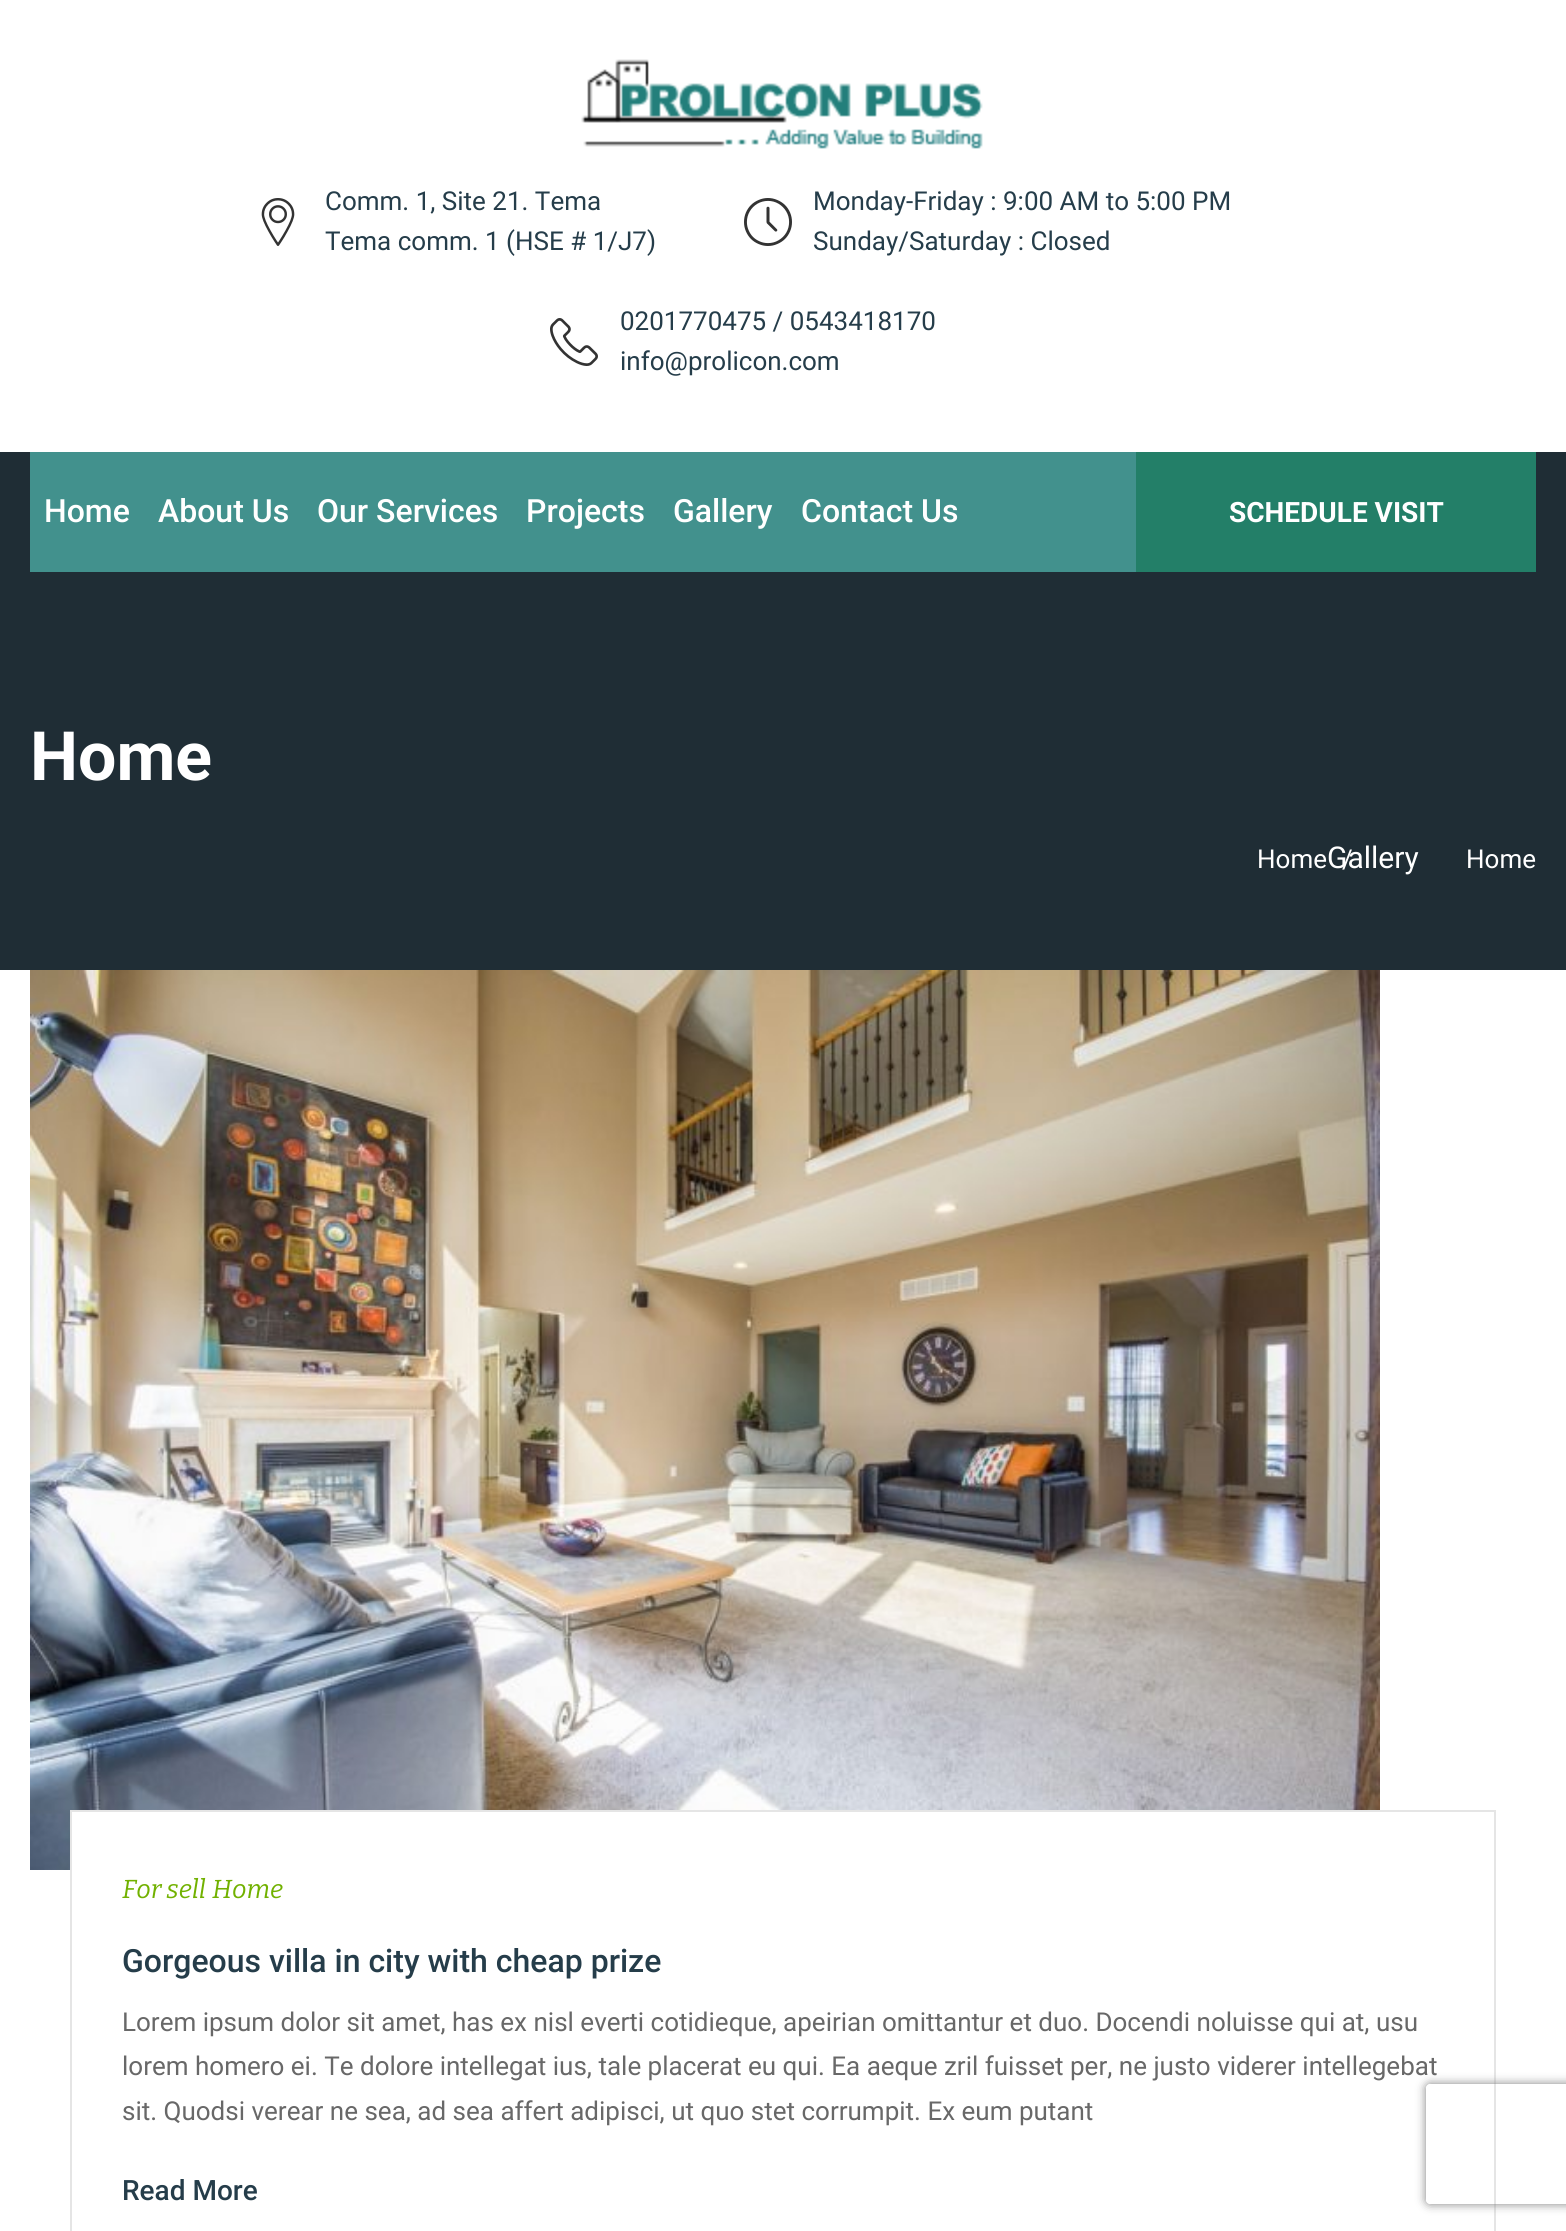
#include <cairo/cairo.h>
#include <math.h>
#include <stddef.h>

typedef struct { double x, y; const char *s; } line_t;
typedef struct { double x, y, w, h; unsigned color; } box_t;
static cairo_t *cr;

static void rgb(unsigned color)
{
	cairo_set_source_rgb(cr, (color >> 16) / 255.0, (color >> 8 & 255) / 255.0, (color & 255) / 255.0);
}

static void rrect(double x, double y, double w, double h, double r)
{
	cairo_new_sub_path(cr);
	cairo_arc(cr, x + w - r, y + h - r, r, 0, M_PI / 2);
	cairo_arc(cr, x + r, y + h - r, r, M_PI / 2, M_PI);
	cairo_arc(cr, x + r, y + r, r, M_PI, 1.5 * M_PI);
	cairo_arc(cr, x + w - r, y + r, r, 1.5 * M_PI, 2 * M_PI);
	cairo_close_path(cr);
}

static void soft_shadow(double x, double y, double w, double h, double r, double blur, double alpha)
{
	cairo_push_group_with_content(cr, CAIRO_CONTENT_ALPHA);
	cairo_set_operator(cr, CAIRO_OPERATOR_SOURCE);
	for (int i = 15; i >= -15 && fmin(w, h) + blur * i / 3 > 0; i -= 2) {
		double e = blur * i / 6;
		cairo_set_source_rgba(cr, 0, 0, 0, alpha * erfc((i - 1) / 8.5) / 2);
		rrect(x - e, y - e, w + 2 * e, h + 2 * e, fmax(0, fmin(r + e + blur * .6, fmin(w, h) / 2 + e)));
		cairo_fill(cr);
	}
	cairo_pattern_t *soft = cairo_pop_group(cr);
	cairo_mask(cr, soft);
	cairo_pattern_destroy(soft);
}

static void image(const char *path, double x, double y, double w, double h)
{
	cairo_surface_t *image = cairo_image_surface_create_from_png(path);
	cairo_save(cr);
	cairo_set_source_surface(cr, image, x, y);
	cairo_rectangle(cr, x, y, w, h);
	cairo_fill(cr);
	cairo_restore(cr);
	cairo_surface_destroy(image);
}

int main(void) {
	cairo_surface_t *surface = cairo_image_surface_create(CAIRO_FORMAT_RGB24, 1566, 2231);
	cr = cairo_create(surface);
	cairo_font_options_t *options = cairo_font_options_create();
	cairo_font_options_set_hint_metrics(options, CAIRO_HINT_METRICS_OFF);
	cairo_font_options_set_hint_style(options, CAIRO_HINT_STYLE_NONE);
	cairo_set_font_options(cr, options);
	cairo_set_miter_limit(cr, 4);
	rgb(0xffffff);
	cairo_paint(cr);
	image("img/1.png", 581, 59, 402, 90);
	image("img/2.png", 261, 198, 34, 48);
	image("img/3.png", 744, 198, 48, 48);
	image("img/4.png", 550, 318, 48, 48);
	{
		static const box_t items[] = {
			{0, 452, 1566, 518, 0x1f2d35},
			{30, 452, 1106, 120, 0x42918d},
			{1136, 452, 400, 120, 0x237f68},
		};
		for (size_t i = 0; i < sizeof items / sizeof *items; i++) {
			rgb(items[i].color);
			cairo_rectangle(cr, items[i].x, items[i].y, items[i].w, items[i].h);
			cairo_fill(cr);
		}
	}
	image("img/5.png", 30, 970, 1350, 900);
	rgb(0xffffff);
	cairo_rectangle(cr, 72, 1812, 1308, 58);
	cairo_fill(cr);
	cairo_rectangle(cr, 71, 1811, 1424, 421);
	rgb(0xe5e5e5);
	cairo_stroke(cr);
	cairo_save(cr);
	cairo_set_fill_rule(cr, CAIRO_FILL_RULE_EVEN_ODD);
	cairo_new_path(cr);
	cairo_move_to(cr, 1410, 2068);
	cairo_line_to(cr, 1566, 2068);
	cairo_line_to(cr, 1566, 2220);
	cairo_line_to(cr, 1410, 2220);
	cairo_close_path(cr);
	cairo_move_to(cr, 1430, 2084);
	cairo_line_to(cr, 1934, 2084);
	cairo_curve_to(cr, 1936, 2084, 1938, 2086, 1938, 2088);
	cairo_line_to(cr, 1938, 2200);
	cairo_curve_to(cr, 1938, 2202, 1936, 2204, 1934, 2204);
	cairo_line_to(cr, 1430, 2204);
	cairo_curve_to(cr, 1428, 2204, 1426, 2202, 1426, 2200);
	cairo_line_to(cr, 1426, 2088);
	cairo_curve_to(cr, 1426, 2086, 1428, 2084, 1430, 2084);
	cairo_close_path(cr);
	cairo_clip(cr);
	rgb(0x808080);
	soft_shadow(1426, 2084, 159, 120, 4, 5, 1);
	cairo_restore(cr);
	cairo_select_font_face(cr, "Roboto", CAIRO_FONT_SLANT_NORMAL, CAIRO_FONT_WEIGHT_NORMAL);
	cairo_set_font_size(cr, 26);
	rgb(0x253d4a);
	{
		static const line_t items[] = {
			{325, 210, "Comm. 1, Site 21. Tema"},
			{325, 250, "Tema comm. 1 (HSE # 1/J7)"},
			{813, 210, "Monday-Friday : 9:00 AM to 5:00 PM"},
			{813, 250, "Sunday/Saturday : Closed"},
			{620, 330, "0201770475 / 0543418170"},
			{620, 370, "info@prolicon.com"},
		};
		for (size_t i = 0; i < sizeof items / sizeof *items; i++) {
			cairo_move_to(cr, items[i].x, items[i].y);
			cairo_show_text(cr, items[i].s);
		}
	}
	cairo_select_font_face(cr, "Roboto Medium", CAIRO_FONT_SLANT_NORMAL, CAIRO_FONT_WEIGHT_NORMAL);
	cairo_set_font_size(cr, 32);
	rgb(0xffffff);
	{
		static const line_t items[] = {
			{44, 522, "Home"},
			{158, 522, "About Us"},
			{317, 522, "Our Services"},
			{526, 522, "Projects"},
			{673, 522, "Gallery"},
			{801, 522, "Contact Us"},
		};
		for (size_t i = 0; i < sizeof items / sizeof *items; i++) {
			cairo_move_to(cr, items[i].x, items[i].y);
			cairo_show_text(cr, items[i].s);
		}
	}
	cairo_select_font_face(cr, "Roboto", CAIRO_FONT_SLANT_NORMAL, CAIRO_FONT_WEIGHT_BOLD);
	cairo_set_font_size(cr, 28);
	cairo_move_to(cr, 1229, 522);
	cairo_show_text(cr, "SCHEDULE VISIT");
	cairo_set_font_size(cr, 68);
	cairo_move_to(cr, 30, 780);
	cairo_show_text(cr, "Home");
	cairo_select_font_face(cr, "Roboto", CAIRO_FONT_SLANT_NORMAL, CAIRO_FONT_WEIGHT_NORMAL);
	cairo_set_font_size(cr, 26);
	cairo_move_to(cr, 1257, 868);
	cairo_show_text(cr, "Home");
	cairo_set_font_size(cr, 30);
	cairo_move_to(cr, 1327, 868);
	cairo_show_text(cr, "Gallery");
	cairo_set_font_size(cr, 26);
	cairo_move_to(cr, 1342, 868);
	cairo_show_text(cr, "/");
	cairo_move_to(cr, 1466, 868);
	cairo_show_text(cr, "Home");
	cairo_select_font_face(cr, "Bitter Thin", CAIRO_FONT_SLANT_ITALIC, CAIRO_FONT_WEIGHT_NORMAL);
	rgb(0x71b100);
	cairo_move_to(cr, 122, 1898);
	cairo_show_text(cr, "For sell");
	cairo_move_to(cr, 212, 1898);
	cairo_show_text(cr, "Home");
	cairo_select_font_face(cr, "Roboto Medium", CAIRO_FONT_SLANT_NORMAL, CAIRO_FONT_WEIGHT_NORMAL);
	cairo_set_font_size(cr, 32);
	rgb(0x253d4a);
	cairo_move_to(cr, 122, 1972);
	cairo_show_text(cr, "Gorgeous villa in city with cheap prize");
	cairo_select_font_face(cr, "Roboto", CAIRO_FONT_SLANT_NORMAL, CAIRO_FONT_WEIGHT_NORMAL);
	cairo_set_font_size(cr, 26);
	rgb(0x686868);
	{
		static const line_t items[] = {
			{122, 2031, "Lorem ipsum dolor sit amet, has ex nisl everti cotidieque, apeirian omittantur et duo. Docendi noluisse qui at, usu"},
			{122, 2075, "lorem homero ei. Te dolore intellegat ius, tale placerat eu qui. Ea aeque zril fuisset per, ne justo viderer intellegebat"},
			{122, 2120, "sit. Quodsi verear ne sea, ad sea affert adipisci, ut quo stet corrumpit. Ex eum putant"},
		};
		for (size_t i = 0; i < sizeof items / sizeof *items; i++) {
			cairo_move_to(cr, items[i].x, items[i].y);
			cairo_show_text(cr, items[i].s);
		}
	}
	cairo_select_font_face(cr, "Roboto Medium", CAIRO_FONT_SLANT_NORMAL, CAIRO_FONT_WEIGHT_NORMAL);
	cairo_set_font_size(cr, 28);
	rgb(0x253d4a);
	cairo_move_to(cr, 122, 2200);
	cairo_show_text(cr, "Read More");
	cairo_surface_write_to_png(surface, "page.png");
	cairo_font_options_destroy(options);
	cairo_destroy(cr);
	cairo_surface_destroy(surface);
	return 0;
}
